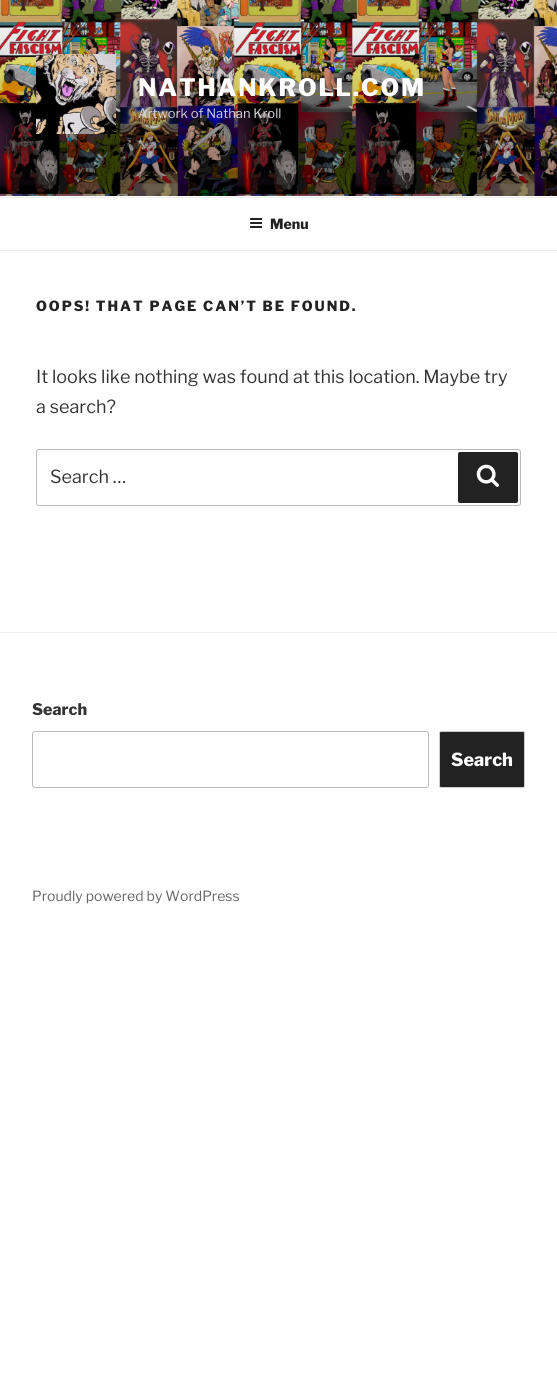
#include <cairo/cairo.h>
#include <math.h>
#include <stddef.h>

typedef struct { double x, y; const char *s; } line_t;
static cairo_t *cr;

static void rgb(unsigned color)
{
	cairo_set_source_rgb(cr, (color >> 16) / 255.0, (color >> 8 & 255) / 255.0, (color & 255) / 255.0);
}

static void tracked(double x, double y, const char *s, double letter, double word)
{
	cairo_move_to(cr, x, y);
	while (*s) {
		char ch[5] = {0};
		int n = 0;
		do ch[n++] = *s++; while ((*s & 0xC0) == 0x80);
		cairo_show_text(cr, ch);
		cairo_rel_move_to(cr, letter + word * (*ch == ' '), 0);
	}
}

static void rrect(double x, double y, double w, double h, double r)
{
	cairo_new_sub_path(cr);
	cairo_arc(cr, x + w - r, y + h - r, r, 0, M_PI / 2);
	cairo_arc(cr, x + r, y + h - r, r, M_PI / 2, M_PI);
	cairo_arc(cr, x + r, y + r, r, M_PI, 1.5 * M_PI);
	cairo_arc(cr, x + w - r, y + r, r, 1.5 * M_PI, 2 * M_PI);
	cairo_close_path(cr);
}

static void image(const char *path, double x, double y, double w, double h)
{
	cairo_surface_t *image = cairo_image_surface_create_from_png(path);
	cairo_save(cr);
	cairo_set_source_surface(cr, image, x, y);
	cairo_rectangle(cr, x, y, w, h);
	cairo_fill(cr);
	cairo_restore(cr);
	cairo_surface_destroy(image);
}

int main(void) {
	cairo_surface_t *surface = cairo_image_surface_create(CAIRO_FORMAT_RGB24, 557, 1379);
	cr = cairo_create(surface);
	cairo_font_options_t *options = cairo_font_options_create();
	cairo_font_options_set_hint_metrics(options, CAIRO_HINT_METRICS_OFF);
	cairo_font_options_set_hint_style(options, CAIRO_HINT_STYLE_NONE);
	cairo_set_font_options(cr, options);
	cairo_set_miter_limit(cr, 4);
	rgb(0xffffff);
	cairo_paint(cr);
	rgb(0xfafafa);
	cairo_rectangle(cr, 0, 196, 557, 1);
	cairo_fill(cr);
	image("img/1.png", 0, 0, 557, 196);
	image("img/2.png", 36, 54, 80, 80);
	rgb(0xeeeeee);
	cairo_rectangle(cr, 0, 197, 557, 1);
	cairo_fill(cr);
	cairo_rectangle(cr, 0, 250, 557, 1);
	cairo_fill(cr);
	image("img/3.png", 250, 218, 13, 10);
	rrect(36.5, 449.5, 484, 56, 2.5);
	rgb(0xbbbbbb);
	cairo_set_line_width(cr, 1);
	cairo_stroke(cr);
	rgb(0x222222);
	rrect(458, 452, 60, 51, 2);
	cairo_fill(cr);
	image("img/4.png", 476, 464, 23, 23);
	rgb(0xeeeeee);
	cairo_rectangle(cr, 0, 632, 557, 1);
	cairo_fill(cr);
	rrect(32.5, 731.5, 396, 56, 2.5);
	rgb(0xbbbbbb);
	cairo_stroke(cr);
	rgb(0x222222);
	rrect(439.5, 731.5, 85, 56, 1.5);
	cairo_fill_preserve(cr);
	rgb(0xcccccc);
	cairo_stroke(cr);
	cairo_select_font_face(cr, "Libre Franklin Thin", CAIRO_FONT_SLANT_NORMAL, CAIRO_FONT_WEIGHT_NORMAL);
	cairo_set_font_size(cr, 24);
	rgb(0xffffff);
	tracked(138, 96, "NATHANKROLL.COM", 1.9, 0);
	cairo_select_font_face(cr, "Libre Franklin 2 Thin", CAIRO_FONT_SLANT_NORMAL, CAIRO_FONT_WEIGHT_NORMAL);
	cairo_set_font_size(cr, 13);
	rgb(0xd6d3db);
	cairo_move_to(cr, 138, 118);
	cairo_show_text(cr, "Artwork of Nathan Kroll");
	cairo_select_font_face(cr, "Libre Franklin Thin", CAIRO_FONT_SLANT_NORMAL, CAIRO_FONT_WEIGHT_NORMAL);
	cairo_set_font_size(cr, 14);
	rgb(0x222222);
	cairo_move_to(cr, 270, 229);
	cairo_show_text(cr, "Menu");
	tracked(36, 311, "OOPS! THAT PAGE CAN’T BE FOUND.", 1.95, 0);
	cairo_select_font_face(cr, "Libre Franklin 2 Thin", CAIRO_FONT_SLANT_NORMAL, CAIRO_FONT_WEIGHT_NORMAL);
	cairo_set_font_size(cr, 18);
	rgb(0x333333);
	{
		static const line_t items[] = {
			{36, 383, "It looks like nothing was found at this location. Maybe try"},
			{36, 413, "a search?"},
			{50, 483, "Search …"},
		};
		for (size_t i = 0; i < sizeof items / sizeof *items; i++) {
			cairo_move_to(cr, items[i].x, items[i].y);
			cairo_show_text(cr, items[i].s);
		}
	}
	cairo_select_font_face(cr, "Libre Franklin Thin", CAIRO_FONT_SLANT_NORMAL, CAIRO_FONT_WEIGHT_NORMAL);
	cairo_set_font_size(cr, 16);
	cairo_move_to(cr, 32, 715);
	cairo_show_text(cr, "Search");
	cairo_set_font_size(cr, 18);
	rgb(0xffffff);
	cairo_move_to(cr, 451, 766);
	cairo_show_text(cr, "Search");
	cairo_select_font_face(cr, "Libre Franklin 2 Thin", CAIRO_FONT_SLANT_NORMAL, CAIRO_FONT_WEIGHT_NORMAL);
	cairo_set_font_size(cr, 14);
	rgb(0x666666);
	cairo_move_to(cr, 32, 901);
	cairo_show_text(cr, "Proudly powered by WordPress");
	cairo_surface_write_to_png(surface, "page.png");
	cairo_font_options_destroy(options);
	cairo_destroy(cr);
	cairo_surface_destroy(surface);
	return 0;
}
